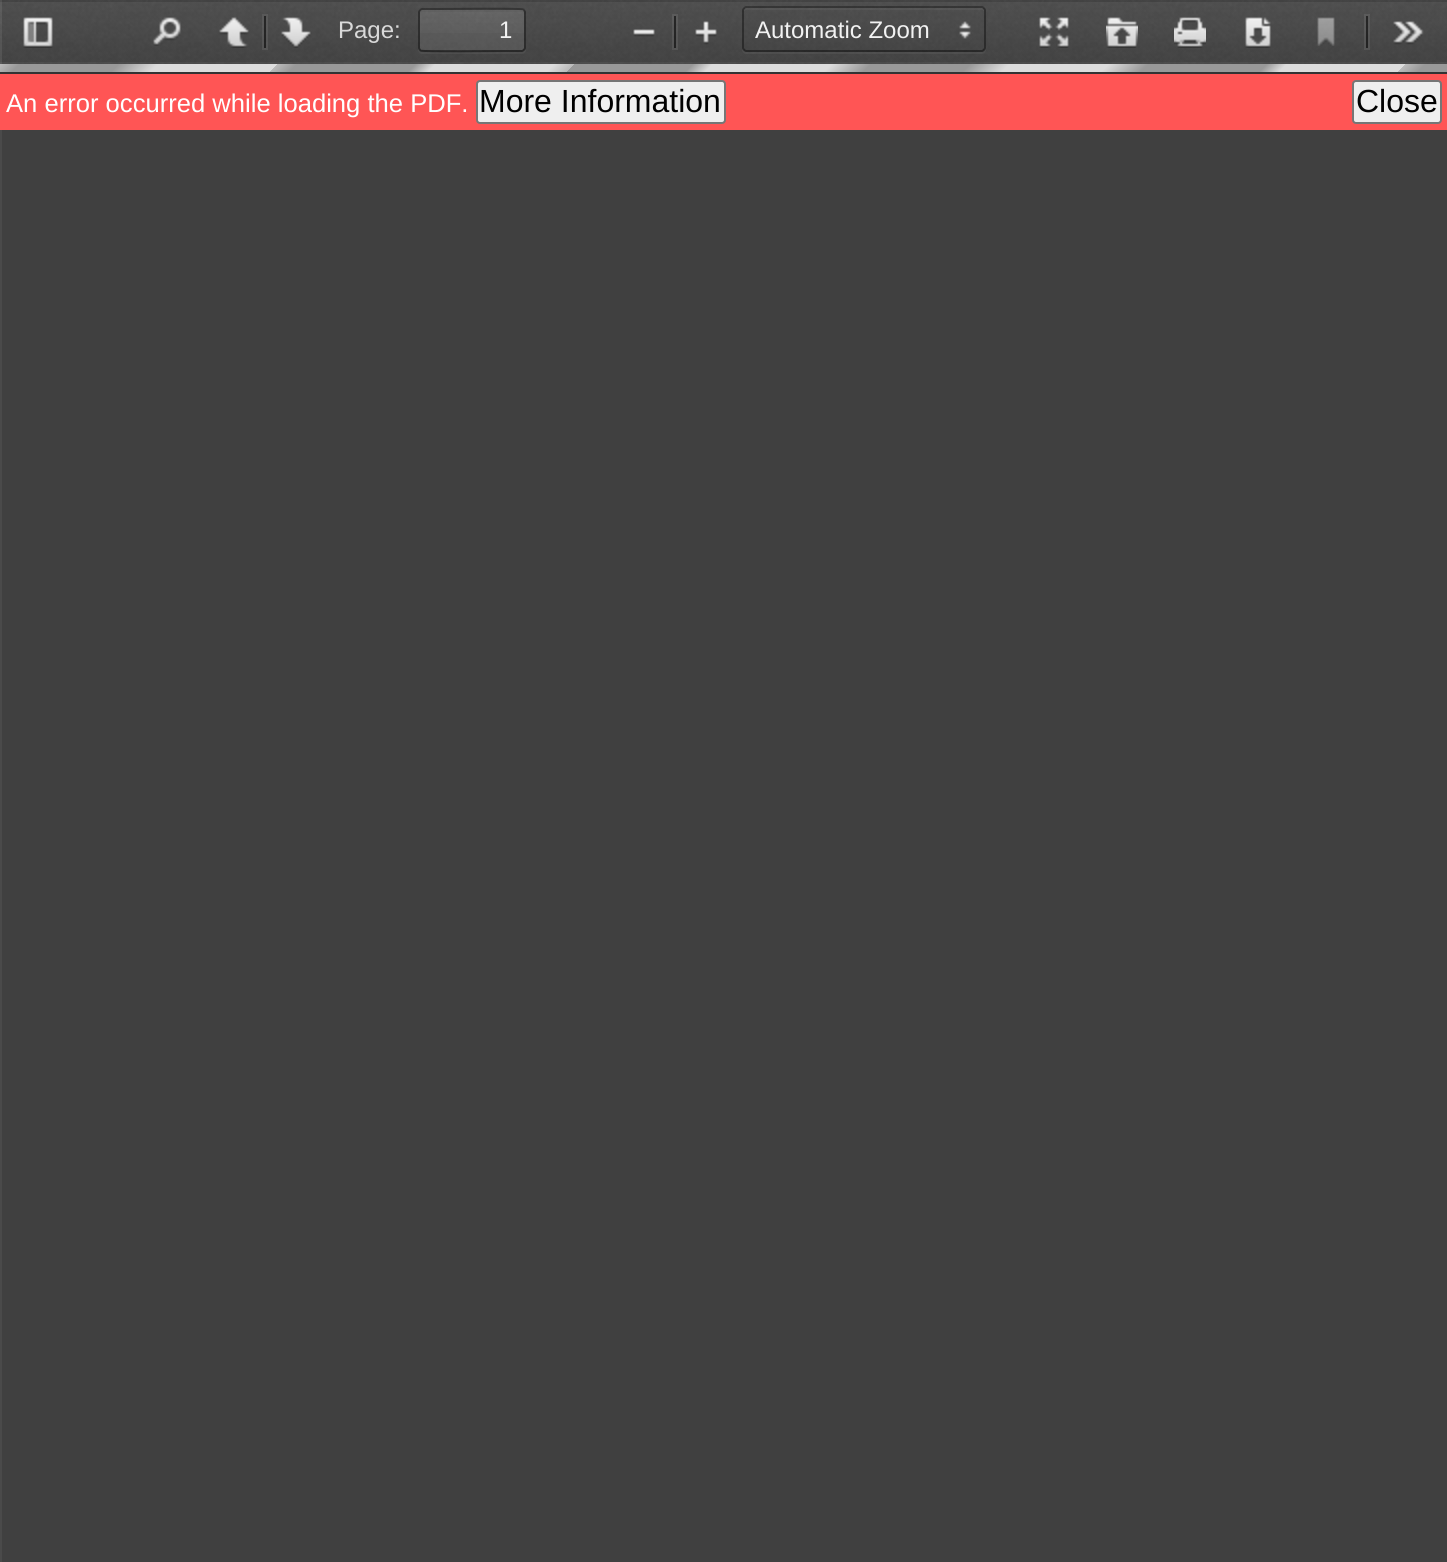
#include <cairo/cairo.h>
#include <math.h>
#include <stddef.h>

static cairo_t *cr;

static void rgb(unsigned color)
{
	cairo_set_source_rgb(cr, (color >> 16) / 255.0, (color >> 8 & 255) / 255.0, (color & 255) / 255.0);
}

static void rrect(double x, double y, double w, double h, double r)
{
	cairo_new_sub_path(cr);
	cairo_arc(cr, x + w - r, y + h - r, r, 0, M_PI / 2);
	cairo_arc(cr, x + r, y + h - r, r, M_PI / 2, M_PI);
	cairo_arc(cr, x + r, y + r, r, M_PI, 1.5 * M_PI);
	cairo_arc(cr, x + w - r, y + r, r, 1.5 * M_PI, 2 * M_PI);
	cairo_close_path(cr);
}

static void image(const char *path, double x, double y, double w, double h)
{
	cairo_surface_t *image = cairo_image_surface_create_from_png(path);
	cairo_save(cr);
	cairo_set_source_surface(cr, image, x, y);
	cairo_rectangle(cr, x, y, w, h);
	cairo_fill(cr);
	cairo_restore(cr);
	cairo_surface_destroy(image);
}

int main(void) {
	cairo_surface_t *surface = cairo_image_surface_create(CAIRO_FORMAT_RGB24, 1447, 1562);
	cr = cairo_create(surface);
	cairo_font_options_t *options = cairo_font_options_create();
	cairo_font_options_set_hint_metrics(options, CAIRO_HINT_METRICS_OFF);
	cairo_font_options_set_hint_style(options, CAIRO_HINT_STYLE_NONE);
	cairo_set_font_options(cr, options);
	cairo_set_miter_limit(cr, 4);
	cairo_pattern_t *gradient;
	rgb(0x404040);
	cairo_paint(cr);
	image("img/1.png", 0, 0, 1447, 64);
	cairo_set_source_rgba(cr, 1, 1, 1, 0.05);
	cairo_rectangle(cr, 0, 62, 1447, 2);
	cairo_fill(cr);
	cairo_set_source_rgba(cr, 0, 0, 0, 0.15);
	cairo_rectangle(cr, 0, 0, 1447, 2);
	cairo_fill(cr);
	cairo_set_source_rgba(cr, 1, 1, 1, 0.08);
	cairo_rectangle(cr, 0, 0, 2, 64);
	cairo_fill(cr);
	image("img/2.png", 23, 17, 30, 31);
	image("img/3.png", 153, 17, 28, 29);
	image("img/4.png", 219, 17, 30, 31);
	cairo_rectangle(cr, 263, 15, 4, 34);
	cairo_stroke(cr);
	cairo_set_source_rgba(cr, 0, 0, 0, 0.5);
	cairo_rectangle(cr, 264, 16, 2, 32);
	cairo_fill(cr);
	image("img/5.png", 281, 17, 30, 31);
	cairo_set_source_rgba(cr, 1, 1, 1, 0.05);
	cairo_new_path(cr);
	cairo_move_to(cr, 418, 48);
	cairo_line_to(cr, 418, 50);
	cairo_curve_to(cr, 418, 52, 420, 54, 422, 54);
	cairo_line_to(cr, 522, 54);
	cairo_curve_to(cr, 524, 54, 526, 52, 526, 50);
	cairo_line_to(cr, 526, 48);
	cairo_curve_to(cr, 526, 50, 524, 52, 522, 52);
	cairo_line_to(cr, 422, 52);
	cairo_curve_to(cr, 420, 52, 418, 50, 418, 48);
	cairo_close_path(cr);
	cairo_fill(cr);
	cairo_set_source_rgba(cr, 1, 1, 1, 0.09);
	rrect(420, 10, 104, 40, 2);
	cairo_fill(cr);
	gradient = cairo_pattern_create_linear(472, 10, 472, 50);
	cairo_pattern_add_color_stop_rgba(gradient, 0, 1, 1, 1, 0.05);
	cairo_pattern_add_color_stop_rgba(gradient, 1, 1, 1, 1, 0);
	cairo_set_source(cr, gradient);
	cairo_pattern_destroy(gradient);
	cairo_rectangle(cr, 420, 10, 104, 23);
	cairo_fill(cr);
	cairo_set_source_rgba(cr, 0, 0, 0, 0.05);
	cairo_new_path(cr);
	cairo_move_to(cr, 422, 12);
	cairo_line_to(cr, 522, 12);
	cairo_curve_to(cr, 523, 12, 524, 13, 524, 14);
	cairo_line_to(cr, 524, 12);
	cairo_curve_to(cr, 524, 11, 523, 10, 522, 10);
	cairo_line_to(cr, 422, 10);
	cairo_curve_to(cr, 421, 10, 420, 11, 420, 12);
	cairo_line_to(cr, 420, 14);
	cairo_curve_to(cr, 420, 13, 421, 12, 422, 12);
	cairo_close_path(cr);
	cairo_fill(cr);
	cairo_new_path(cr);
	cairo_move_to(cr, 420, 10);
	cairo_line_to(cr, 422, 9);
	cairo_line_to(cr, 438.5, 9);
	cairo_curve_to(cr, 447.5, 9, 521.5, 8, 523.5, 9.5);
	cairo_line_to(cr, 524, 10);
	cairo_set_source_rgba(cr, 0, 0, 0, 0.32);
	cairo_stroke(cr);
	cairo_new_path(cr);
	cairo_move_to(cr, 524, 10);
	cairo_line_to(cr, 525, 12);
	cairo_line_to(cr, 525, 48);
	cairo_line_to(cr, 524, 50);
	cairo_set_source_rgba(cr, 0, 0, 0, 0.38);
	cairo_stroke(cr);
	cairo_new_path(cr);
	cairo_move_to(cr, 524, 50);
	cairo_line_to(cr, 522, 51);
	cairo_line_to(cr, 505.5, 51);
	cairo_curve_to(cr, 496.5, 51, 422.5, 52, 420.5, 50.5);
	cairo_line_to(cr, 420, 50);
	cairo_set_source_rgba(cr, 0, 0, 0, 0.42);
	cairo_stroke(cr);
	cairo_new_path(cr);
	cairo_move_to(cr, 420, 50);
	cairo_line_to(cr, 419, 48);
	cairo_line_to(cr, 419, 12);
	cairo_line_to(cr, 420, 10);
	cairo_set_source_rgba(cr, 0, 0, 0, 0.38);
	cairo_stroke(cr);
	image("img/6.png", 633, 29, 22, 8);
	cairo_rectangle(cr, 673, 15, 4, 34);
	cairo_set_source_rgba(cr, 1, 1, 1, 0.08);
	cairo_stroke(cr);
	cairo_set_source_rgba(cr, 0, 0, 0, 0.5);
	cairo_rectangle(cr, 674, 16, 2, 32);
	cairo_fill(cr);
	image("img/7.png", 695, 21, 22, 24);
	cairo_set_source_rgba(cr, 1, 1, 1, 0.05);
	cairo_new_path(cr);
	cairo_move_to(cr, 742, 48);
	cairo_line_to(cr, 742, 50);
	cairo_curve_to(cr, 742, 52, 744, 54, 746, 54);
	cairo_line_to(cr, 982, 54);
	cairo_curve_to(cr, 984, 54, 986, 52, 986, 50);
	cairo_line_to(cr, 986, 48);
	cairo_curve_to(cr, 986, 50, 984, 52, 982, 52);
	cairo_line_to(cr, 746, 52);
	cairo_curve_to(cr, 744, 52, 742, 50, 742, 48);
	cairo_close_path(cr);
	cairo_fill(cr);
	image("img/8.png", 959, 21, 12, 18);
	cairo_new_path(cr);
	cairo_move_to(cr, 746, 10);
	cairo_line_to(cr, 982, 10);
	cairo_curve_to(cr, 983, 10, 984, 11, 984, 12);
	cairo_curve_to(cr, 984, 10, 984, 8, 982, 8);
	cairo_line_to(cr, 745, 8);
	cairo_curve_to(cr, 744, 9, 744, 11, 744, 12);
	cairo_curve_to(cr, 744, 11, 745, 10, 746, 10);
	cairo_close_path(cr);
	cairo_fill(cr);
	cairo_new_path(cr);
	cairo_move_to(cr, 744, 8);
	cairo_line_to(cr, 746, 7);
	cairo_line_to(cr, 982, 7);
	cairo_line_to(cr, 984, 8);
	cairo_set_source_rgba(cr, 0, 0, 0, 0.32);
	cairo_stroke(cr);
	cairo_new_path(cr);
	cairo_move_to(cr, 984, 8);
	cairo_line_to(cr, 985, 10);
	cairo_line_to(cr, 985, 48);
	cairo_line_to(cr, 984, 50);
	cairo_set_source_rgba(cr, 0, 0, 0, 0.38);
	cairo_stroke(cr);
	cairo_new_path(cr);
	cairo_move_to(cr, 984, 50);
	cairo_line_to(cr, 982, 51);
	cairo_line_to(cr, 746, 51);
	cairo_line_to(cr, 744, 50);
	cairo_set_source_rgba(cr, 0, 0, 0, 0.42);
	cairo_stroke(cr);
	cairo_new_path(cr);
	cairo_move_to(cr, 744, 50);
	cairo_line_to(cr, 743, 48);
	cairo_line_to(cr, 743, 10);
	cairo_line_to(cr, 744, 8);
	cairo_set_source_rgba(cr, 0, 0, 0, 0.38);
	cairo_stroke(cr);
	image("img/9.png", 1039, 17, 30, 31);
	image("img/10.png", 1106, 17, 32, 31);
	image("img/11.png", 1174, 17, 32, 31);
	image("img/12.png", 1245, 17, 26, 31);
	image("img/13.png", 1317, 17, 18, 29);
	cairo_rectangle(cr, 1365, 15, 4, 34);
	cairo_set_source_rgba(cr, 1, 1, 1, 0.08);
	cairo_stroke(cr);
	cairo_set_source_rgba(cr, 0, 0, 0, 0.5);
	cairo_rectangle(cr, 1366, 16, 2, 32);
	cairo_fill(cr);
	image("img/14.png", 1393, 21, 31, 24);
	rgb(0x333333);
	cairo_rectangle(cr, 0, 72, 1447, 2);
	cairo_fill(cr);
	gradient = cairo_pattern_create_linear(435, -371, 1425, 619);
	cairo_pattern_add_color_stop_rgba(gradient, 0, 0.733, 0.733, 0.733, 1);
	cairo_pattern_add_color_stop_rgba(gradient, 0.01, 0.6, 0.6, 0.6, 1);
	cairo_pattern_add_color_stop_rgba(gradient, 0.06, 0.6, 0.6, 0.6, 1);
	cairo_pattern_add_color_stop_rgba(gradient, 0.08, 0.867, 0.867, 0.867, 1);
	cairo_pattern_add_color_stop_rgba(gradient, 0.14, 0.867, 0.867, 0.867, 1);
	cairo_pattern_add_color_stop_rgba(gradient, 0.14, 0.733, 0.733, 0.733, 1);
	cairo_pattern_add_color_stop_rgba(gradient, 0.15, 0.6, 0.6, 0.6, 1);
	cairo_pattern_add_color_stop_rgba(gradient, 0.21, 0.6, 0.6, 0.6, 1);
	cairo_pattern_add_color_stop_rgba(gradient, 0.22, 0.867, 0.867, 0.867, 1);
	cairo_pattern_add_color_stop_rgba(gradient, 0.28, 0.867, 0.867, 0.867, 1);
	cairo_pattern_add_color_stop_rgba(gradient, 0.29, 0.733, 0.733, 0.733, 1);
	cairo_pattern_add_color_stop_rgba(gradient, 0.29, 0.6, 0.6, 0.6, 1);
	cairo_pattern_add_color_stop_rgba(gradient, 0.35, 0.6, 0.6, 0.6, 1);
	cairo_pattern_add_color_stop_rgba(gradient, 0.36, 0.867, 0.867, 0.867, 1);
	cairo_pattern_add_color_stop_rgba(gradient, 0.42, 0.867, 0.867, 0.867, 1);
	cairo_pattern_add_color_stop_rgba(gradient, 0.43, 0.733, 0.733, 0.733, 1);
	cairo_pattern_add_color_stop_rgba(gradient, 0.44, 0.6, 0.6, 0.6, 1);
	cairo_pattern_add_color_stop_rgba(gradient, 0.49, 0.6, 0.6, 0.6, 1);
	cairo_pattern_add_color_stop_rgba(gradient, 0.51, 0.867, 0.867, 0.867, 1);
	cairo_pattern_add_color_stop_rgba(gradient, 0.56, 0.867, 0.867, 0.867, 1);
	cairo_pattern_add_color_stop_rgba(gradient, 0.57, 0.733, 0.733, 0.733, 1);
	cairo_pattern_add_color_stop_rgba(gradient, 0.58, 0.6, 0.6, 0.6, 1);
	cairo_pattern_add_color_stop_rgba(gradient, 0.64, 0.6, 0.6, 0.6, 1);
	cairo_pattern_add_color_stop_rgba(gradient, 0.65, 0.867, 0.867, 0.867, 1);
	cairo_pattern_add_color_stop_rgba(gradient, 0.71, 0.867, 0.867, 0.867, 1);
	cairo_pattern_add_color_stop_rgba(gradient, 0.71, 0.733, 0.733, 0.733, 1);
	cairo_pattern_add_color_stop_rgba(gradient, 0.72, 0.6, 0.6, 0.6, 1);
	cairo_pattern_add_color_stop_rgba(gradient, 0.78, 0.6, 0.6, 0.6, 1);
	cairo_pattern_add_color_stop_rgba(gradient, 0.79, 0.867, 0.867, 0.867, 1);
	cairo_pattern_add_color_stop_rgba(gradient, 0.85, 0.867, 0.867, 0.867, 1);
	cairo_pattern_add_color_stop_rgba(gradient, 0.86, 0.733, 0.733, 0.733, 1);
	cairo_pattern_add_color_stop_rgba(gradient, 0.86, 0.6, 0.6, 0.6, 1);
	cairo_pattern_add_color_stop_rgba(gradient, 0.92, 0.6, 0.6, 0.6, 1);
	cairo_pattern_add_color_stop_rgba(gradient, 0.94, 0.867, 0.867, 0.867, 1);
	cairo_pattern_add_color_stop_rgba(gradient, 0.99, 0.867, 0.867, 0.867, 1);
	cairo_pattern_add_color_stop_rgba(gradient, 1, 0.733, 0.733, 0.733, 1);
	cairo_set_source(cr, gradient);
	cairo_pattern_destroy(gradient);
	cairo_rectangle(cr, 0, 64, 1447, 8);
	cairo_fill(cr);
	rgb(0xff5555);
	cairo_rectangle(cr, 0, 74, 1447, 56);
	cairo_fill(cr);
	rgb(0xefefef);
	rrect(477, 81, 248, 42, 3);
	cairo_fill_preserve(cr);
	rgb(0x767676);
	cairo_stroke(cr);
	rgb(0xefefef);
	rrect(1353, 81, 88, 42, 3);
	cairo_fill_preserve(cr);
	rgb(0x767676);
	cairo_stroke(cr);
	rgb(0x4a4a4a);
	cairo_rectangle(cr, 0, 130, 2, 1432);
	cairo_fill(cr);
	cairo_select_font_face(cr, "Liberation Sans", CAIRO_FONT_SLANT_NORMAL, CAIRO_FONT_WEIGHT_NORMAL);
	cairo_set_font_size(cr, 24);
	rgb(0xd9d9d9);
	cairo_move_to(cr, 338, 38);
	cairo_show_text(cr, "Page:");
	rgb(0xf2f2f2);
	cairo_move_to(cr, 499, 38);
	cairo_show_text(cr, "1");
	cairo_move_to(cr, 755, 38);
	cairo_show_text(cr, "Automatic Zoom");
	cairo_set_font_size(cr, 25.6);
	rgb(0xffffff);
	cairo_move_to(cr, 6, 112);
	cairo_show_text(cr, "An error occurred while loading the PDF.");
	cairo_set_font_size(cr, 32);
	rgb(0x000000);
	cairo_move_to(cr, 479, 112);
	cairo_show_text(cr, "More Information");
	cairo_move_to(cr, 1356, 112);
	cairo_show_text(cr, "Close");
	cairo_surface_write_to_png(surface, "page.png");
	cairo_font_options_destroy(options);
	cairo_destroy(cr);
	cairo_surface_destroy(surface);
	return 0;
}
